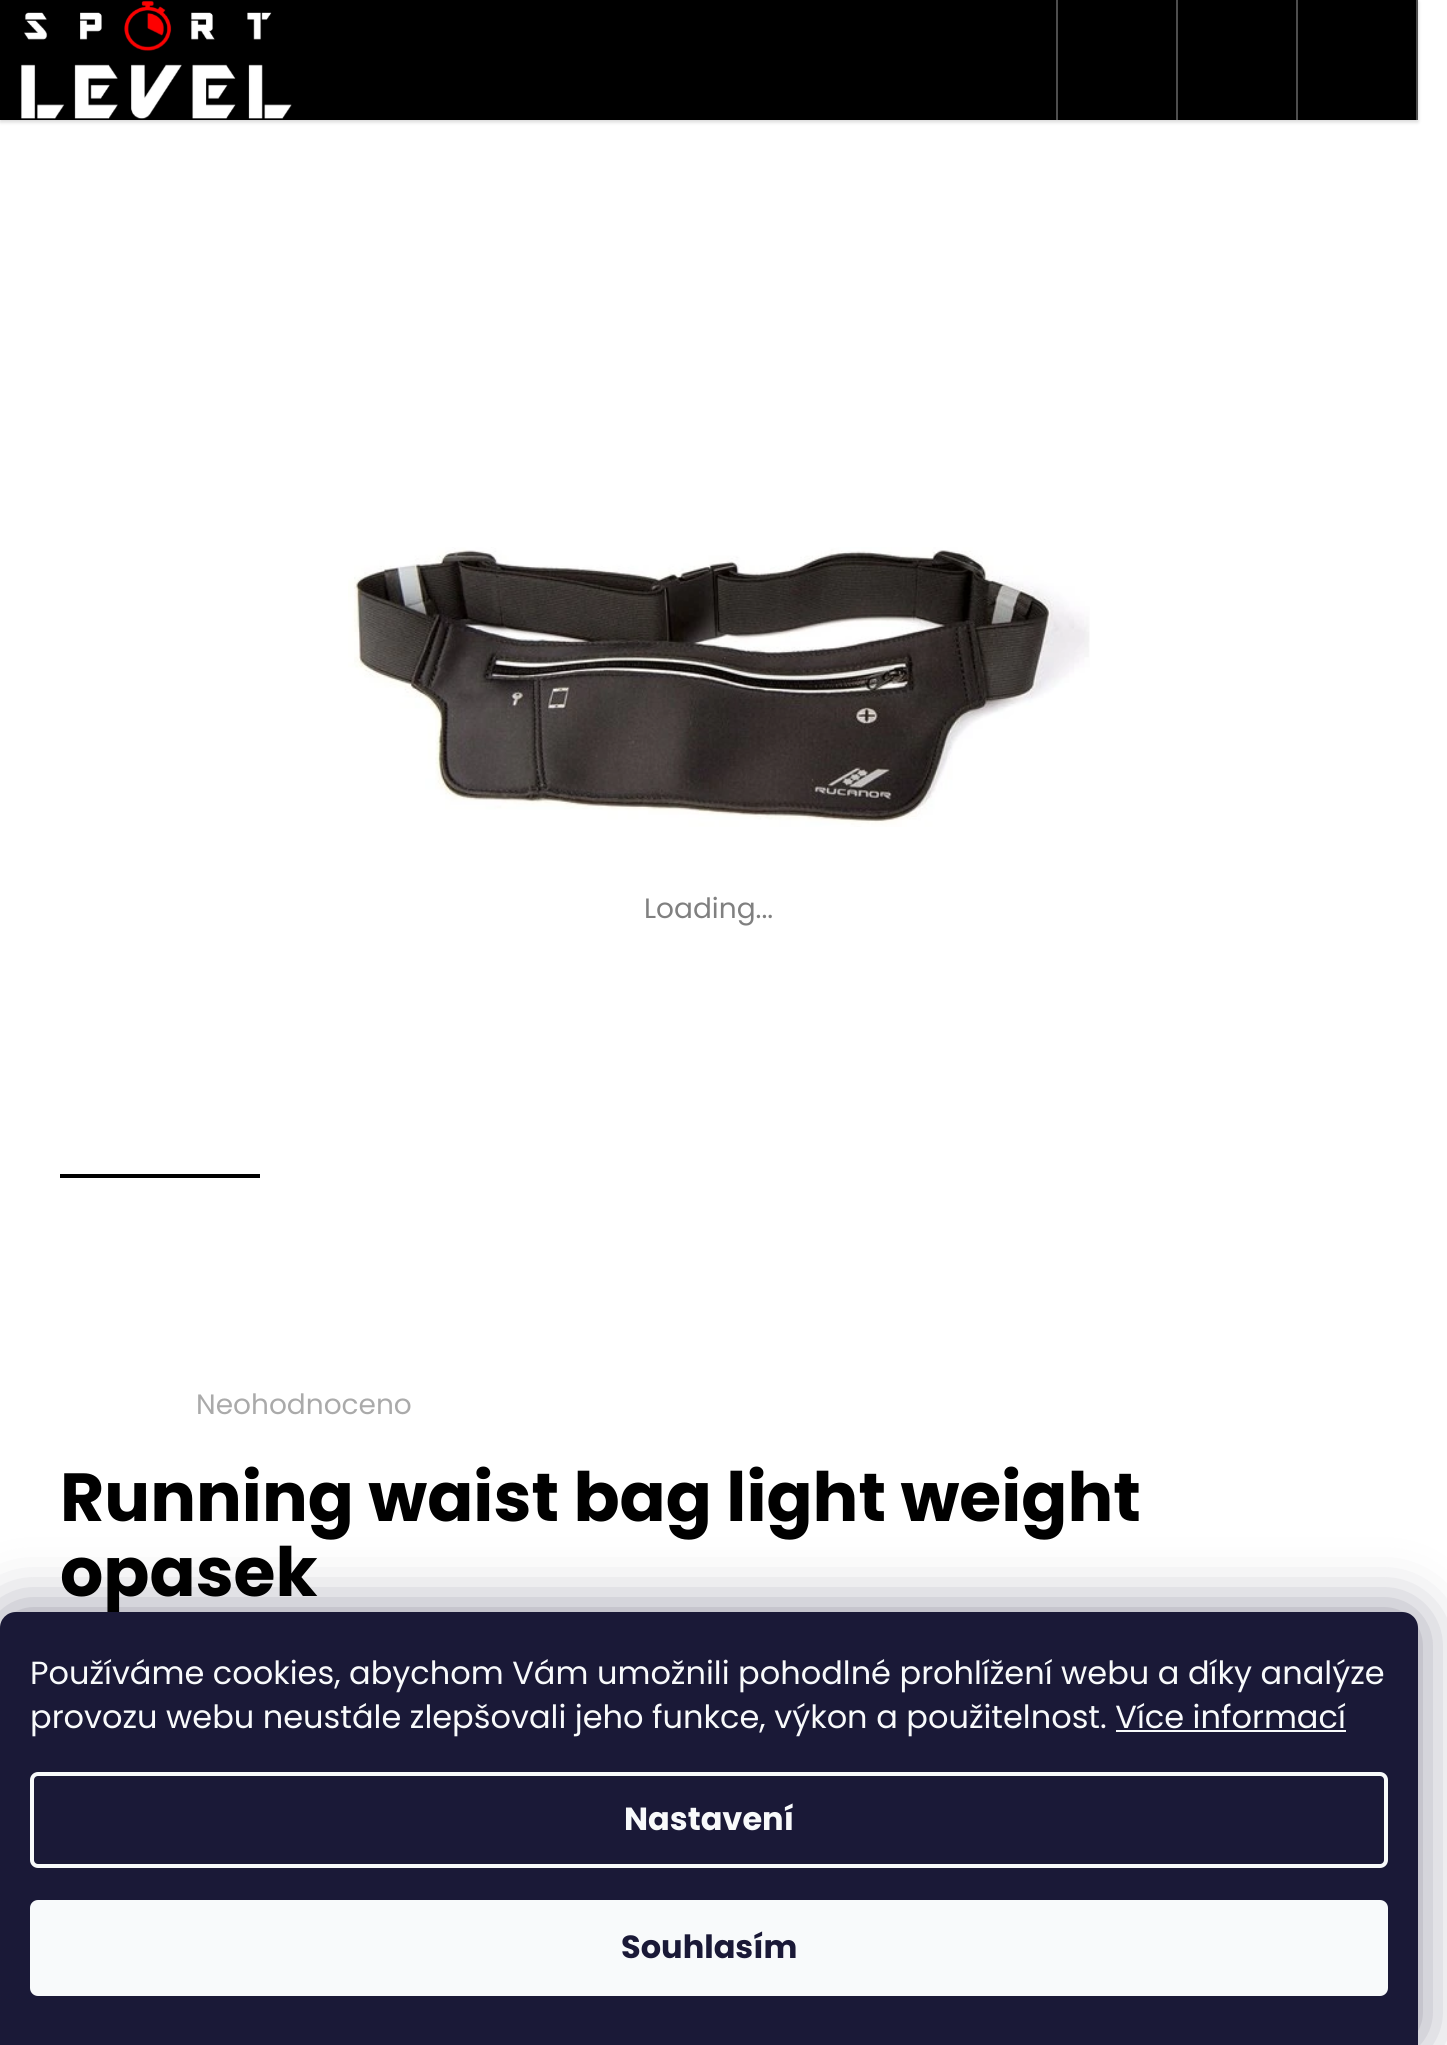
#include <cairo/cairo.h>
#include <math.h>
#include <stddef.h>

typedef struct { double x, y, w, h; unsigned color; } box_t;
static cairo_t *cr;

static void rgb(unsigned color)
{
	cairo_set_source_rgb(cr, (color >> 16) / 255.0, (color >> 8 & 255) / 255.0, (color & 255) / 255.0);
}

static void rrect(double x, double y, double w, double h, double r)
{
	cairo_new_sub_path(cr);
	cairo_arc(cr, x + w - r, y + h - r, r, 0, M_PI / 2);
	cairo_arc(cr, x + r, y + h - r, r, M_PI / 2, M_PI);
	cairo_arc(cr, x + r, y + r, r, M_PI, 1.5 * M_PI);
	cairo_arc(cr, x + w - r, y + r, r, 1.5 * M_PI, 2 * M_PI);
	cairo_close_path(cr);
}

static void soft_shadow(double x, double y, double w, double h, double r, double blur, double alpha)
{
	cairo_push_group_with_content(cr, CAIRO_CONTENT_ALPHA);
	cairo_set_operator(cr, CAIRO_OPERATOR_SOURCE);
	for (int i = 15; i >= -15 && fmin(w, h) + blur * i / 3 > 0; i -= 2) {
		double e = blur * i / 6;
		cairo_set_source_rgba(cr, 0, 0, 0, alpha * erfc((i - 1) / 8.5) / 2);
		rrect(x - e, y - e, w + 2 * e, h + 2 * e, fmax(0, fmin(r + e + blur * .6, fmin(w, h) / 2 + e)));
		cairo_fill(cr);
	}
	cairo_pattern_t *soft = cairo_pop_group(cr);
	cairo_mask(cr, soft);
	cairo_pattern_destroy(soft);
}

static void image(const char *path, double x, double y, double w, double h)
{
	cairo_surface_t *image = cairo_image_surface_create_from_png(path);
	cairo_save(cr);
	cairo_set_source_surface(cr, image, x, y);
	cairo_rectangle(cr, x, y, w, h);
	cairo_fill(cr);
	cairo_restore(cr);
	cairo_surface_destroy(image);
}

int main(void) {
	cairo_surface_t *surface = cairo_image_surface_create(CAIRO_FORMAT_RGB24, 1447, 2045);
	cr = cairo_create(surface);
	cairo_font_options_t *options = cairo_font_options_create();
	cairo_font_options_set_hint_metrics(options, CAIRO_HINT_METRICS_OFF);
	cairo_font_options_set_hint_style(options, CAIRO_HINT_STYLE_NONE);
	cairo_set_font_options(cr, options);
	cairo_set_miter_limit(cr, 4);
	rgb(0xffffff);
	cairo_paint(cr);
	rgb(0x000000);
	soft_shadow(0, 2, 1418, 120, 0, 2, 0.16);
	rgb(0x000000);
	cairo_rectangle(cr, 0, 0, 1416, 120);
	cairo_fill(cr);
	image("img/1.png", 21, 0, 271, 119);
	{
		static const box_t items[] = {
			{1416, 0, 2, 120, 0x4d4d4d},
			{1056, 0, 2, 120, 0x4d4d4d},
			{1176, 0, 2, 120, 0x4d4d4d},
			{1296, 0, 2, 120, 0x4d4d4d},
		};
		for (size_t i = 0; i < sizeof items / sizeof *items; i++) {
			rgb(items[i].color);
			cairo_rectangle(cr, items[i].x, items[i].y, items[i].w, items[i].h);
			cairo_fill(cr);
		}
	}
	image("img/2.png", 348, 547, 742, 280);
	rgb(0x000000);
	cairo_rectangle(cr, 60, 1174, 200, 4);
	cairo_fill(cr);
	rgb(0x1b1939);
	soft_shadow(0, 1612, 1418, 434, 16, 30, 0.5);
	cairo_select_font_face(cr, "Poppins", CAIRO_FONT_SLANT_NORMAL, CAIRO_FONT_WEIGHT_NORMAL);
	cairo_set_font_size(cr, 28);
	rgb(0x808080);
	cairo_move_to(cr, 644, 918);
	cairo_show_text(cr, "Loading...");
	rgb(0xaaaaaa);
	cairo_move_to(cr, 196, 1414);
	cairo_show_text(cr, "Neohodnoceno");
	cairo_select_font_face(cr, "Poppins", CAIRO_FONT_SLANT_NORMAL, CAIRO_FONT_WEIGHT_BOLD);
	cairo_set_font_size(cr, 68);
	rgb(0x000000);
	cairo_move_to(cr, 60, 1521);
	cairo_show_text(cr, "Running waist bag light weight");
	cairo_move_to(cr, 60, 1596);
	cairo_show_text(cr, "opasek");
	rgb(0x1a1937);
	cairo_new_path(cr);
	cairo_move_to(cr, 16, 1612);
	cairo_line_to(cr, 1402, 1612);
	cairo_curve_to(cr, 1411, 1612, 1418, 1619, 1418, 1628);
	cairo_line_to(cr, 1418, 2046);
	cairo_line_to(cr, 0, 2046);
	cairo_line_to(cr, 0, 1628);
	cairo_curve_to(cr, 0, 1619, 7, 1612, 16, 1612);
	cairo_close_path(cr);
	cairo_fill(cr);
	cairo_select_font_face(cr, "Poppins", CAIRO_FONT_SLANT_NORMAL, CAIRO_FONT_WEIGHT_NORMAL);
	cairo_set_font_size(cr, 32);
	rgb(0xf8fafb);
	cairo_move_to(cr, 30, 1684);
	cairo_show_text(cr, "Používáme cookies, abychom Vám umožnili pohodlné prohlížení webu a díky analýze");
	cairo_move_to(cr, 30, 1728);
	cairo_show_text(cr, "provozu webu neustále zlepšovali jeho funkce, výkon a použitelnost. Více informací");
	cairo_rectangle(cr, 1116, 1730, 230, 2);
	cairo_fill(cr);
	rrect(32, 1774, 1354, 92, 6);
	cairo_set_line_width(cr, 4);
	cairo_stroke(cr);
	cairo_select_font_face(cr, "Poppins", CAIRO_FONT_SLANT_NORMAL, CAIRO_FONT_WEIGHT_BOLD);
	cairo_move_to(cr, 624, 1830);
	cairo_show_text(cr, "Nastavení");
	rrect(30, 1900, 1358, 96, 8);
	cairo_fill(cr);
	rgb(0x1a1937);
	cairo_move_to(cr, 621, 1958);
	cairo_show_text(cr, "Souhlasím");
	cairo_surface_write_to_png(surface, "page.png");
	cairo_font_options_destroy(options);
	cairo_destroy(cr);
	cairo_surface_destroy(surface);
	return 0;
}
